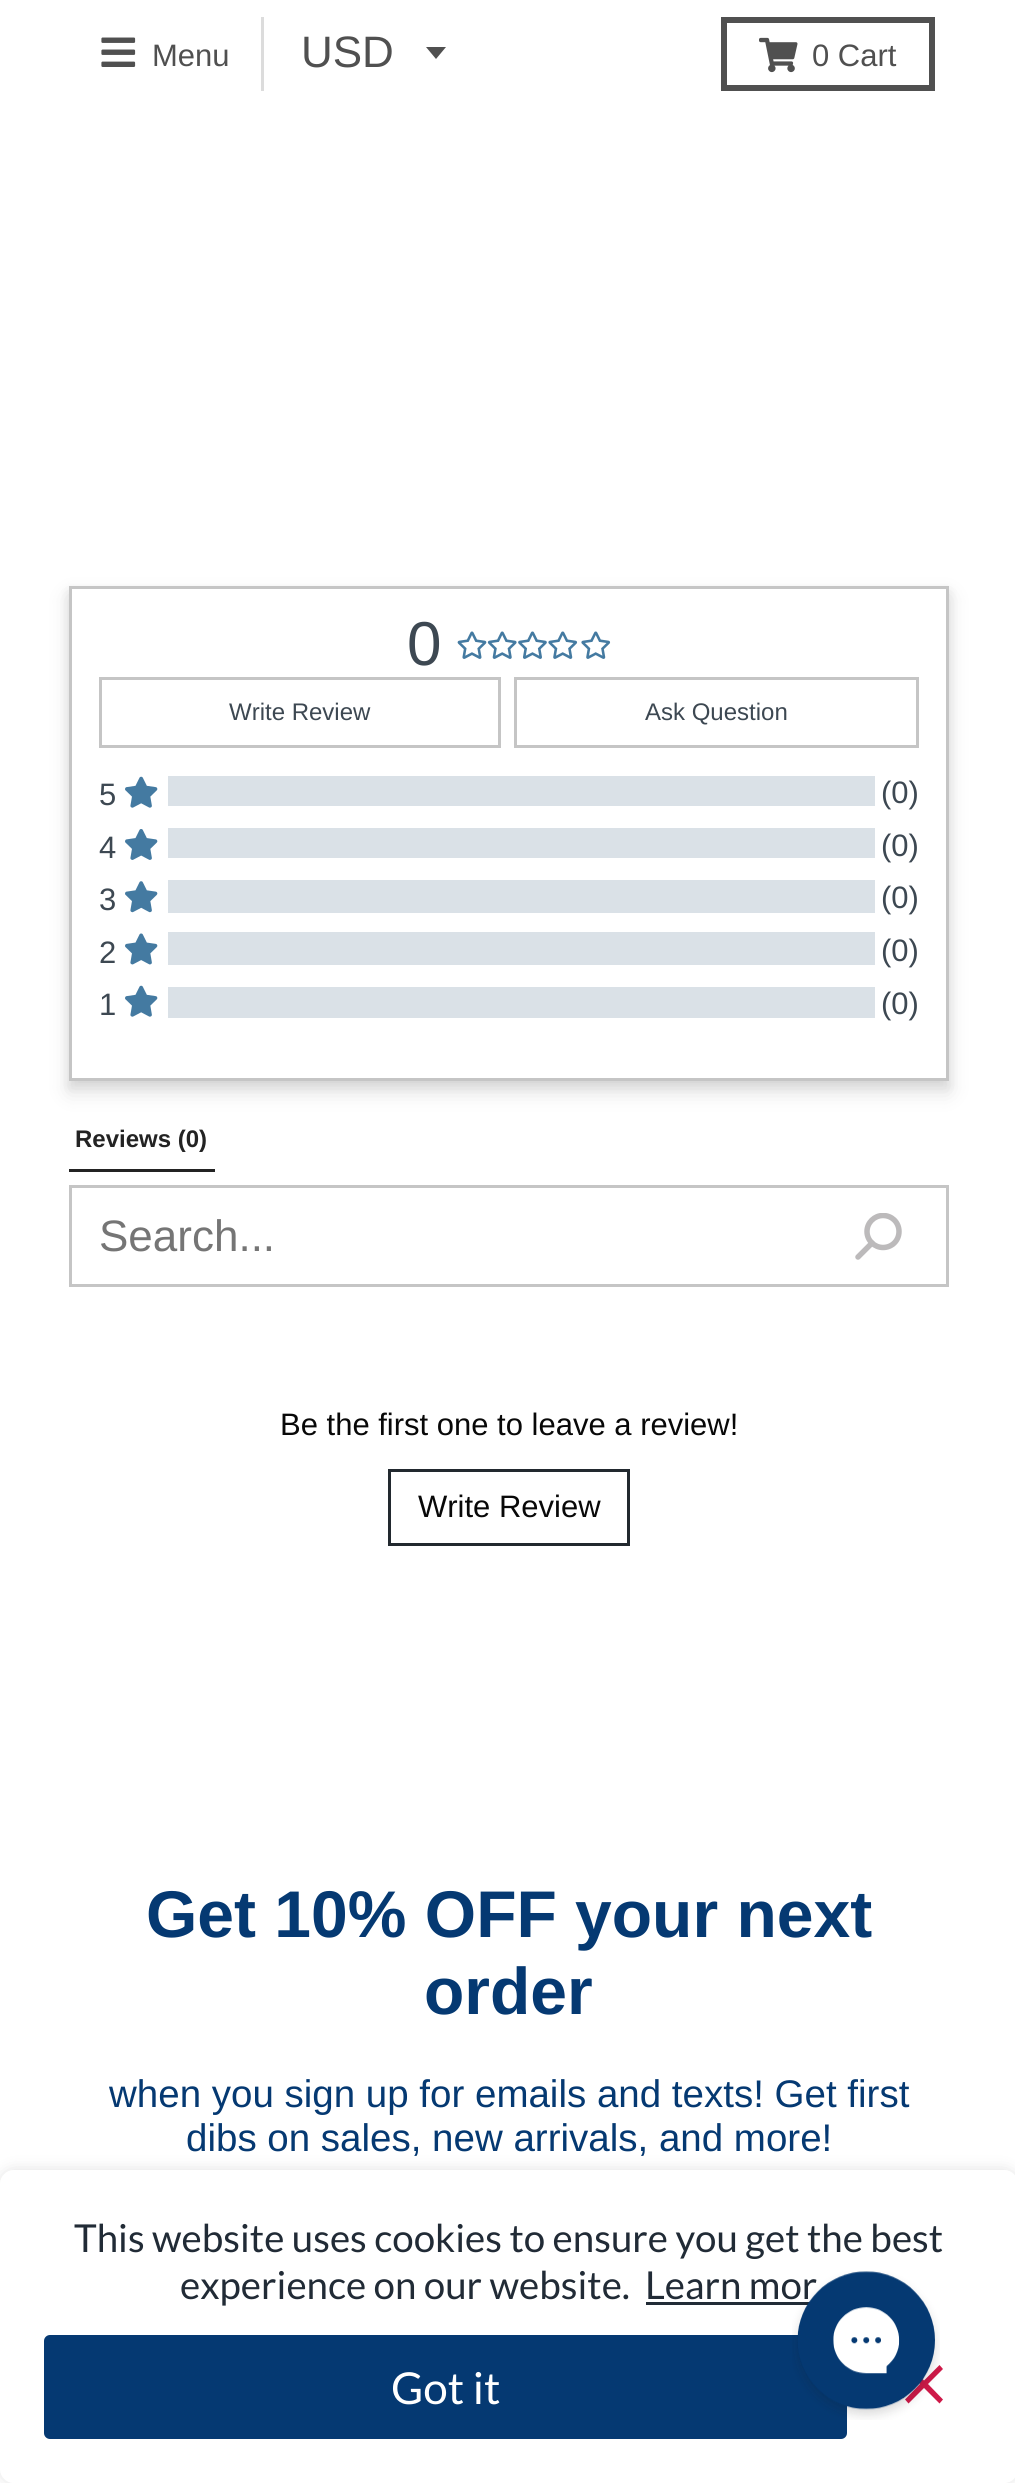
#include <cairo/cairo.h>
#include <math.h>
#include <stddef.h>

typedef struct { double x, y; const char *s; } line_t;
static cairo_t *cr;

static void rgb(unsigned color)
{
	cairo_set_source_rgb(cr, (color >> 16) / 255.0, (color >> 8 & 255) / 255.0, (color & 255) / 255.0);
}

static void rrect(double x, double y, double w, double h, double r)
{
	cairo_new_sub_path(cr);
	cairo_arc(cr, x + w - r, y + h - r, r, 0, M_PI / 2);
	cairo_arc(cr, x + r, y + h - r, r, M_PI / 2, M_PI);
	cairo_arc(cr, x + r, y + r, r, M_PI, 1.5 * M_PI);
	cairo_arc(cr, x + w - r, y + r, r, 1.5 * M_PI, 2 * M_PI);
	cairo_close_path(cr);
}

static void soft_shadow(double x, double y, double w, double h, double r, double blur, double alpha)
{
	cairo_push_group_with_content(cr, CAIRO_CONTENT_ALPHA);
	cairo_set_operator(cr, CAIRO_OPERATOR_SOURCE);
	for (int i = 15; i >= -15 && fmin(w, h) + blur * i / 3 > 0; i -= 2) {
		double e = blur * i / 6;
		cairo_set_source_rgba(cr, 0, 0, 0, alpha * erfc((i - 1) / 8.5) / 2);
		rrect(x - e, y - e, w + 2 * e, h + 2 * e, fmax(0, fmin(r + e + blur * .6, fmin(w, h) / 2 + e)));
		cairo_fill(cr);
	}
	cairo_pattern_t *soft = cairo_pop_group(cr);
	cairo_mask(cr, soft);
	cairo_pattern_destroy(soft);
}

static void image(const char *path, double x, double y, double w, double h)
{
	cairo_surface_t *image = cairo_image_surface_create_from_png(path);
	cairo_save(cr);
	cairo_set_source_surface(cr, image, x, y);
	cairo_rectangle(cr, x, y, w, h);
	cairo_fill(cr);
	cairo_restore(cr);
	cairo_surface_destroy(image);
}

int main(void) {
	cairo_surface_t *surface = cairo_image_surface_create(CAIRO_FORMAT_RGB24, 1015, 2483);
	cr = cairo_create(surface);
	cairo_font_options_t *options = cairo_font_options_create();
	cairo_font_options_set_hint_metrics(options, CAIRO_HINT_METRICS_OFF);
	cairo_font_options_set_hint_style(options, CAIRO_HINT_STYLE_NONE);
	cairo_set_font_options(cr, options);
	cairo_set_miter_limit(cr, 4);
	rgb(0xffffff);
	cairo_paint(cr);
	rgb(0xdcdcdc);
	cairo_rectangle(cr, 261, 17, 3, 74);
	cairo_fill(cr);
	image("img/1.png", 101, 37, 35, 30);
	rgb(0x505050);
	cairo_new_path(cr);
	cairo_move_to(cr, 426, 47);
	cairo_line_to(cr, 436, 59);
	cairo_line_to(cr, 446, 47);
	cairo_close_path(cr);
	cairo_fill(cr);
	cairo_rectangle(cr, 724, 20, 208, 68);
	cairo_set_line_width(cr, 6);
	cairo_stroke(cr);
	image("img/2.png", 759, 37, 39, 36);
	rgb(0x000000);
	soft_shadow(69, 591, 880, 495, 0, 5.5, 0.08);
	soft_shadow(69, 597, 880, 495, 0, 11, 0.12);
	rgb(0xffffff);
	cairo_rectangle(cr, 70.5, 587.5, 877, 492);
	cairo_fill_preserve(cr);
	rgb(0xc5c5c5);
	cairo_set_line_width(cr, 3);
	cairo_stroke(cr);
	image("img/3.png", 457, 631, 30, 28);
	image("img/4.png", 487, 631, 30, 28);
	image("img/5.png", 518, 631, 29, 28);
	image("img/6.png", 548, 631, 30, 28);
	image("img/6.png", 581, 631, 30, 28);
	cairo_rectangle(cr, 100.5, 678.5, 399, 68);
	cairo_stroke(cr);
	cairo_rectangle(cr, 515.5, 678.5, 402, 68);
	cairo_stroke(cr);
	image("img/7.png", 125, 776, 33, 32);
	rgb(0xdae1e7);
	cairo_rectangle(cr, 168, 776, 707, 30);
	cairo_fill(cr);
	image("img/8.png", 125, 829, 33, 31);
	cairo_rectangle(cr, 168, 828, 707, 30);
	cairo_fill(cr);
	image("img/9.png", 125, 881, 33, 32);
	cairo_rectangle(cr, 168, 880, 707, 33);
	cairo_fill(cr);
	image("img/10.png", 125, 933, 33, 32);
	cairo_rectangle(cr, 168, 932, 707, 33);
	cairo_fill(cr);
	image("img/7.png", 125, 985, 33, 32);
	cairo_rectangle(cr, 168, 987, 707, 31);
	cairo_fill(cr);
	rgb(0x232323);
	cairo_rectangle(cr, 69, 1169, 146, 3);
	cairo_fill(cr);
	cairo_rectangle(cr, 70.5, 1186.5, 877, 99);
	rgb(0xc5c5c5);
	cairo_stroke(cr);
	cairo_save(cr);
	cairo_rectangle(cr, 855, 1213, 47, 47);
	cairo_clip(cr);
	cairo_new_path(cr);
	cairo_move_to(cr, 883, 1247.5);
	cairo_curve_to(cr, 874.5, 1247.5, 867, 1240.5, 867, 1231.5);
	cairo_curve_to(cr, 867, 1222.5, 874.5, 1215.5, 883, 1215.5);
	cairo_curve_to(cr, 892, 1215.5, 899, 1222.5, 899, 1231.5);
	cairo_curve_to(cr, 899, 1240.5, 892, 1247.5, 883, 1247.5);
	cairo_close_path(cr);
	rgb(0xbcbabb);
	cairo_set_line_width(cr, 5.5);
	cairo_set_line_cap(cr, CAIRO_LINE_CAP_ROUND);
	cairo_set_line_join(cr, CAIRO_LINE_JOIN_ROUND);
	cairo_stroke(cr);
	cairo_restore(cr);
	cairo_new_path(cr);
	cairo_move_to(cr, 872, 1243);
	cairo_line_to(cr, 858, 1257);
	rgb(0xbcbabb);
	cairo_set_line_width(cr, 5.5);
	cairo_set_line_cap(cr, CAIRO_LINE_CAP_ROUND);
	cairo_set_line_join(cr, CAIRO_LINE_JOIN_ROUND);
	cairo_stroke(cr);
	cairo_rectangle(cr, 389.5, 1470.5, 239, 74);
	rgb(0x22292f);
	cairo_set_line_width(cr, 3);
	cairo_set_line_cap(cr, CAIRO_LINE_CAP_BUTT);
	cairo_set_line_join(cr, CAIRO_LINE_JOIN_MITER);
	cairo_stroke(cr);
	cairo_save(cr);
	cairo_set_fill_rule(cr, CAIRO_FILL_RULE_EVEN_ODD);
	cairo_new_path(cr);
	cairo_move_to(cr, 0, 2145);
	cairo_line_to(cr, 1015, 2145);
	cairo_line_to(cr, 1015, 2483);
	cairo_line_to(cr, 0, 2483);
	cairo_close_path(cr);
	cairo_move_to(cr, 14, 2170);
	cairo_line_to(cr, 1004, 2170);
	cairo_curve_to(cr, 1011.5, 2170, 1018, 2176.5, 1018, 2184);
	cairo_line_to(cr, 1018, 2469);
	cairo_curve_to(cr, 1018, 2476.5, 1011.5, 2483, 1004, 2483);
	cairo_line_to(cr, 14, 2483);
	cairo_curve_to(cr, 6.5, 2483, 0, 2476.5, 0, 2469);
	cairo_line_to(cr, 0, 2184);
	cairo_curve_to(cr, 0, 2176.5, 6.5, 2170, 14, 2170);
	cairo_close_path(cr);
	cairo_clip(cr);
	rgb(0x000000);
	soft_shadow(0, 2170, 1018, 313, 14, 8, 0.12);
	cairo_restore(cr);
	rgb(0x212b36);
	cairo_rectangle(cr, 646, 2302, 164, 3);
	cairo_fill(cr);
	rgb(0x053972);
	rrect(44, 2335, 803, 104, 6);
	cairo_fill(cr);
	rgb(0xce1948);
	cairo_new_path(cr);
	cairo_move_to(cr, 943, 2369);
	cairo_line_to(cr, 939.5, 2365);
	cairo_line_to(cr, 924, 2380.5);
	cairo_line_to(cr, 908.5, 2365);
	cairo_line_to(cr, 905, 2369);
	cairo_line_to(cr, 920, 2384);
	cairo_line_to(cr, 905, 2399.5);
	cairo_line_to(cr, 908.5, 2403.5);
	cairo_line_to(cr, 924, 2388);
	cairo_line_to(cr, 939.5, 2403.5);
	cairo_line_to(cr, 943, 2399.5);
	cairo_line_to(cr, 928, 2384);
	cairo_close_path(cr);
	cairo_fill(cr);
	cairo_select_font_face(cr, "Liberation Sans", CAIRO_FONT_SLANT_NORMAL, CAIRO_FONT_WEIGHT_NORMAL);
	cairo_set_font_size(cr, 31);
	rgb(0x505050);
	cairo_move_to(cr, 152, 66);
	cairo_show_text(cr, "Menu");
	cairo_set_font_size(cr, 44);
	cairo_move_to(cr, 301, 67);
	cairo_show_text(cr, "USD");
	cairo_set_font_size(cr, 31);
	cairo_move_to(cr, 812, 66);
	cairo_show_text(cr, "0 Cart");
	cairo_set_font_size(cr, 62);
	rgb(0x3d4852);
	cairo_move_to(cr, 407, 665);
	cairo_show_text(cr, "0");
	cairo_set_font_size(cr, 24);
	cairo_move_to(cr, 229, 720);
	cairo_show_text(cr, "Write Review");
	cairo_move_to(cr, 645, 720);
	cairo_show_text(cr, "Ask Question");
	cairo_set_font_size(cr, 31);
	{
		static const line_t items[] = {
			{99, 805, "5"},
			{881, 803, "(0)"},
			{99, 858, "4"},
			{881, 856, "(0)"},
			{99, 910, "3"},
			{881, 908, "(0)"},
			{99, 963, "2"},
			{881, 961, "(0)"},
			{99, 1015, "1"},
			{881, 1014, "(0)"},
		};
		for (size_t i = 0; i < sizeof items / sizeof *items; i++) {
			cairo_move_to(cr, items[i].x, items[i].y);
			cairo_show_text(cr, items[i].s);
		}
	}
	cairo_select_font_face(cr, "Liberation Sans", CAIRO_FONT_SLANT_NORMAL, CAIRO_FONT_WEIGHT_BOLD);
	cairo_set_font_size(cr, 24);
	rgb(0x232323);
	cairo_move_to(cr, 75, 1147);
	cairo_show_text(cr, "Reviews (0)");
	cairo_select_font_face(cr, "Liberation Sans", CAIRO_FONT_SLANT_NORMAL, CAIRO_FONT_WEIGHT_NORMAL);
	cairo_set_font_size(cr, 44);
	rgb(0x757575);
	cairo_move_to(cr, 99, 1251);
	cairo_show_text(cr, "Search...");
	cairo_set_font_size(cr, 31);
	rgb(0x080808);
	cairo_move_to(cr, 280, 1435);
	cairo_show_text(cr, "Be the first one to leave a review!");
	cairo_move_to(cr, 418, 1517);
	cairo_show_text(cr, "Write Review");
	cairo_select_font_face(cr, "Liberation Sans", CAIRO_FONT_SLANT_NORMAL, CAIRO_FONT_WEIGHT_BOLD);
	cairo_set_font_size(cr, 66);
	rgb(0x053972);
	cairo_move_to(cr, 146, 1937);
	cairo_show_text(cr, "Get 10% OFF your next");
	cairo_move_to(cr, 424, 2014);
	cairo_show_text(cr, "order");
	cairo_select_font_face(cr, "Liberation Sans", CAIRO_FONT_SLANT_NORMAL, CAIRO_FONT_WEIGHT_NORMAL);
	cairo_set_font_size(cr, 38.5);
	cairo_move_to(cr, 109, 2107);
	cairo_show_text(cr, "when you sign up for emails and texts! Get first");
	cairo_move_to(cr, 186, 2151);
	cairo_show_text(cr, "dibs on sales, new arrivals, and more!");
	cairo_select_font_face(cr, "Lato", CAIRO_FONT_SLANT_NORMAL, CAIRO_FONT_WEIGHT_NORMAL);
	rgb(0x212b36);
	{
		static const line_t items[] = {
			{74, 2252, "This website uses cookies to ensure you get the best"},
			{180, 2299, "experience on our website."},
			{645, 2299, "Learn mor"},
		};
		for (size_t i = 0; i < sizeof items / sizeof *items; i++) {
			cairo_move_to(cr, items[i].x, items[i].y);
			cairo_show_text(cr, items[i].s);
		}
	}
	cairo_set_font_size(cr, 44);
	rgb(0xffffff);
	cairo_move_to(cr, 391, 2404);
	cairo_show_text(cr, "Got it");
	image("img/11.png", 792, 2271, 148, 149);
	cairo_surface_write_to_png(surface, "page.png");
	cairo_font_options_destroy(options);
	cairo_destroy(cr);
	cairo_surface_destroy(surface);
	return 0;
}
